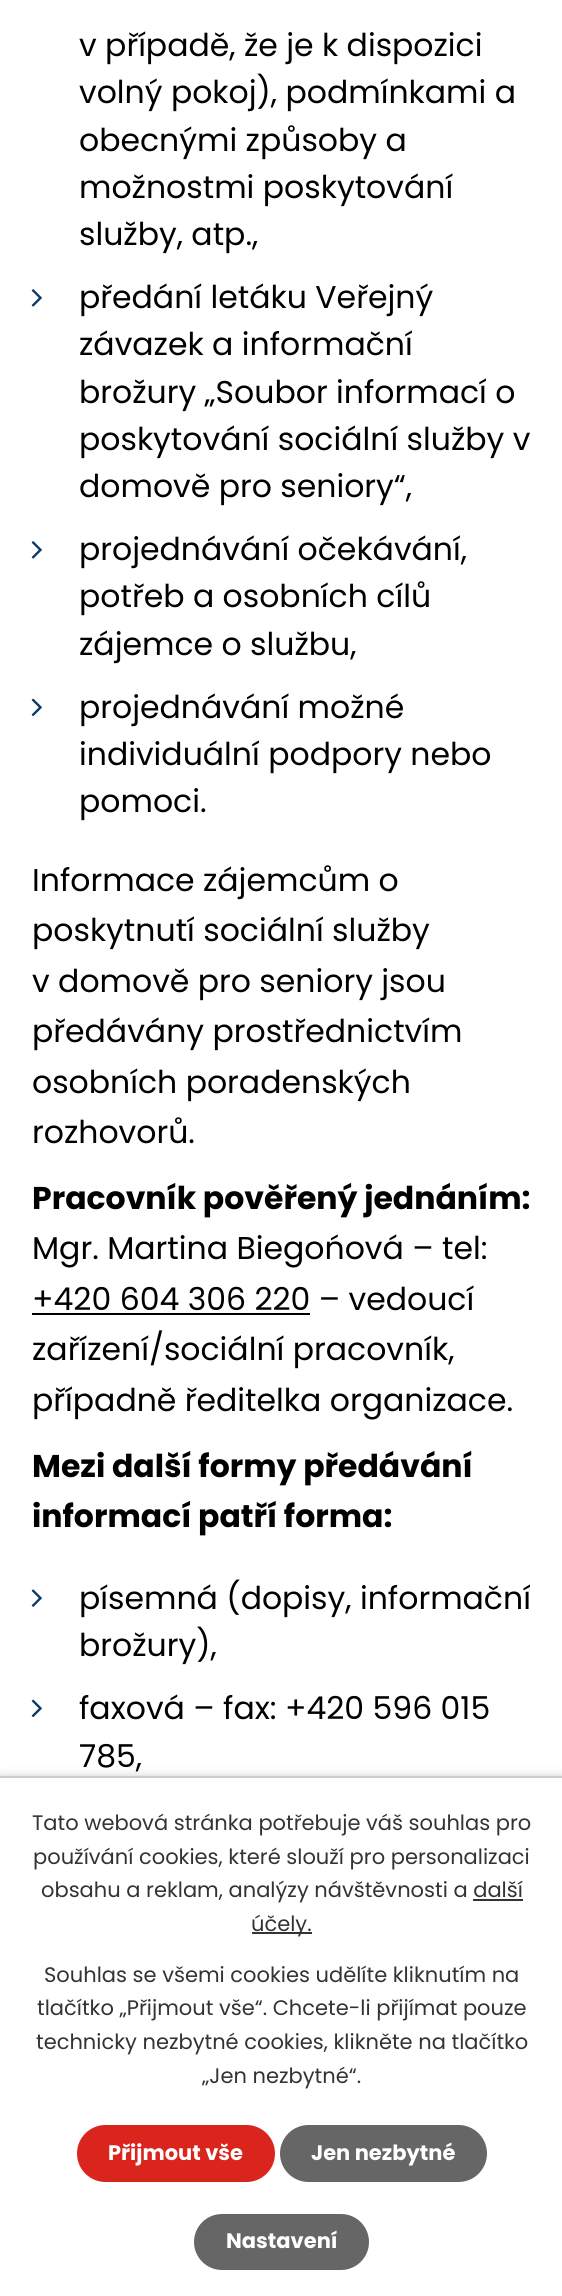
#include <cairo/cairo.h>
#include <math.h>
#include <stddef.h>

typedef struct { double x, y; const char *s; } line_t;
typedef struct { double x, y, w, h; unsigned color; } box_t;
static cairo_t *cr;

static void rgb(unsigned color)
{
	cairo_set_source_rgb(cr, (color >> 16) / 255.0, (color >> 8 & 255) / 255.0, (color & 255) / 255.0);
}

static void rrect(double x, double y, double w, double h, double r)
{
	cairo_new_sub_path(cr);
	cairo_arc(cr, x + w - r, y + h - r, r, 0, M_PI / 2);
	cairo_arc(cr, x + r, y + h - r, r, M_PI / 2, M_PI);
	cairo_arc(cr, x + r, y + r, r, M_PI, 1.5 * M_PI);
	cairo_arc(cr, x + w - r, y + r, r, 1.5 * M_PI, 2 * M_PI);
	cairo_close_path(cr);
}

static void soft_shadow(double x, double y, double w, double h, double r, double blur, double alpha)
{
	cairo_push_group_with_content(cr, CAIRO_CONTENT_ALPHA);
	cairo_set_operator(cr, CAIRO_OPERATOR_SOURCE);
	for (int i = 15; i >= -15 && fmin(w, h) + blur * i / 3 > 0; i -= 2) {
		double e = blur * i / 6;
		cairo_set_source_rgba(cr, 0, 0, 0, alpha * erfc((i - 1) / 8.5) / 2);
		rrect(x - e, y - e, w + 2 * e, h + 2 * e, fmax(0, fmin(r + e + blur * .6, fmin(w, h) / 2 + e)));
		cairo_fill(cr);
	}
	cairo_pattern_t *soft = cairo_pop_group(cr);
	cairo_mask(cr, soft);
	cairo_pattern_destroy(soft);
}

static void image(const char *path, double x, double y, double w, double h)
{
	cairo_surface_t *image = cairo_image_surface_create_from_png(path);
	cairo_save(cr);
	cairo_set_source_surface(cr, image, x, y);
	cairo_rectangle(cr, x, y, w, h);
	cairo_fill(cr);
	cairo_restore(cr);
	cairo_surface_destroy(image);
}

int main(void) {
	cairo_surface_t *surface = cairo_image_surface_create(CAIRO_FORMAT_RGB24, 562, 2296);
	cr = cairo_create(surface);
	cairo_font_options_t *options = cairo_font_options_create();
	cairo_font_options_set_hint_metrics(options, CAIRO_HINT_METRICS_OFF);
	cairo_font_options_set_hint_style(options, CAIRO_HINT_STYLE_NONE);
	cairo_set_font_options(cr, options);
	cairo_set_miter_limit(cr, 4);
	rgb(0xffffff);
	cairo_paint(cr);
	image("img/1.png", 31, 289, 11, 18);
	image("img/1.png", 31, 541, 11, 18);
	image("img/2.png", 31, 698, 11, 19);
	rgb(0x000000);
	cairo_rectangle(cr, 32, 1313, 278, 2);
	cairo_fill(cr);
	image("img/3.png", 31, 1589, 11, 18);
	image("img/2.png", 31, 1699, 11, 19);
	rgb(0x000000);
	soft_shadow(0, 1776, 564, 520, 0, 4.5, 0.2);
	{
		static const box_t items[] = {
			{0, 1778, 562, 518, 0xffffff},
			{0, 1776, 562, 2, 0xcccccc},
			{473, 1899, 50, 2, 0x333333},
			{252, 1932, 60, 2, 0x333333},
		};
		for (size_t i = 0; i < sizeof items / sizeof *items; i++) {
			rgb(items[i].color);
			cairo_rectangle(cr, items[i].x, items[i].y, items[i].w, items[i].h);
			cairo_fill(cr);
		}
	}
	rgb(0xda251c);
	rrect(77, 2125, 198, 57, 28.5);
	cairo_fill(cr);
	rgb(0x666666);
	rrect(280, 2125, 207, 57, 28.5);
	cairo_fill(cr);
	rrect(194, 2214, 175, 56, 28);
	cairo_fill(cr);
	cairo_select_font_face(cr, "Poppins", CAIRO_FONT_SLANT_NORMAL, CAIRO_FONT_WEIGHT_NORMAL);
	cairo_set_font_size(cr, 31.5);
	rgb(0x000000);
	{
		static const line_t items[] = {
			{79, 56, "v případě, že je k dispozici"},
			{79, 103, "volný pokoj), podmínkami a"},
			{79, 151, "obecnými způsoby a"},
			{79, 198, "možnostmi poskytování"},
			{79, 245, "služby, atp.,"},
			{79, 308, "předání letáku Veřejný"},
			{79, 355, "závazek a informační"},
			{79, 403, "brožury „Soubor informací o"},
			{79, 450, "poskytování sociální služby v"},
			{79, 497, "domově pro seniory“,"},
			{79, 560, "projednávání očekávání,"},
			{79, 607, "potřeb a osobních cílů"},
			{79, 655, "zájemce o službu,"},
			{79, 718, "projednávání možné"},
			{79, 765, "individuální podpory nebo"},
			{79, 812, "pomoci."},
			{32, 891, "Informace zájemcům o"},
			{32, 941, "poskytnutí sociální služby"},
			{32, 992, "v domově pro seniory jsou"},
			{32, 1042, "předávány prostřednictvím"},
			{32, 1093, "osobních poradenských"},
			{32, 1143, "rozhovorů."},
		};
		for (size_t i = 0; i < sizeof items / sizeof *items; i++) {
			cairo_move_to(cr, items[i].x, items[i].y);
			cairo_show_text(cr, items[i].s);
		}
	}
	cairo_select_font_face(cr, "Poppins", CAIRO_FONT_SLANT_NORMAL, CAIRO_FONT_WEIGHT_BOLD);
	cairo_move_to(cr, 32, 1209);
	cairo_show_text(cr, "Pracovník pověřený jednáním:");
	cairo_select_font_face(cr, "Poppins", CAIRO_FONT_SLANT_NORMAL, CAIRO_FONT_WEIGHT_NORMAL);
	{
		static const line_t items[] = {
			{32, 1259, "Mgr. Martina Biegońová – tel:"},
			{32, 1310, "+420 604 306 220 – vedoucí"},
			{32, 1360, "zařízení/sociální pracovník,"},
			{32, 1411, "případně ředitelka organizace."},
		};
		for (size_t i = 0; i < sizeof items / sizeof *items; i++) {
			cairo_move_to(cr, items[i].x, items[i].y);
			cairo_show_text(cr, items[i].s);
		}
	}
	cairo_select_font_face(cr, "Poppins", CAIRO_FONT_SLANT_NORMAL, CAIRO_FONT_WEIGHT_BOLD);
	cairo_move_to(cr, 32, 1477);
	cairo_show_text(cr, "Mezi další formy předávání");
	cairo_move_to(cr, 32, 1527);
	cairo_show_text(cr, "informací patří forma:");
	cairo_select_font_face(cr, "Poppins", CAIRO_FONT_SLANT_NORMAL, CAIRO_FONT_WEIGHT_NORMAL);
	{
		static const line_t items[] = {
			{79, 1609, "písemná (dopisy, informační"},
			{79, 1656, "brožury),"},
			{79, 1719, "faxová – fax: +420 596 015"},
			{79, 1767, "785,"},
		};
		for (size_t i = 0; i < sizeof items / sizeof *items; i++) {
			cairo_move_to(cr, items[i].x, items[i].y);
			cairo_show_text(cr, items[i].s);
		}
	}
	cairo_set_font_size(cr, 21);
	rgb(0x333333);
	{
		static const line_t items[] = {
			{32, 1830, "Tato webová stránka potřebuje váš souhlas pro"},
			{33, 1864, "používání cookies, které slouží pro personalizaci"},
			{41, 1897, "obsahu a reklam, analýzy návštěvnosti a další"},
			{251, 1931, "účely."},
			{44, 1982, "Souhlas se všemi cookies udělíte kliknutím na"},
			{37, 2015, "tlačítko „Přijmout vše“. Chcete-li přijímat pouze"},
			{36, 2049, "technicky nezbytné cookies, klikněte na tlačítko"},
			{202, 2083, "„Jen nezbytné“."},
		};
		for (size_t i = 0; i < sizeof items / sizeof *items; i++) {
			cairo_move_to(cr, items[i].x, items[i].y);
			cairo_show_text(cr, items[i].s);
		}
	}
	cairo_select_font_face(cr, "Poppins", CAIRO_FONT_SLANT_NORMAL, CAIRO_FONT_WEIGHT_BOLD);
	rgb(0xffffff);
	{
		static const line_t items[] = {
			{108, 2160, "Přijmout vše"},
			{311, 2160, "Jen nezbytné"},
			{226, 2248, "Nastavení"},
		};
		for (size_t i = 0; i < sizeof items / sizeof *items; i++) {
			cairo_move_to(cr, items[i].x, items[i].y);
			cairo_show_text(cr, items[i].s);
		}
	}
	cairo_surface_write_to_png(surface, "page.png");
	cairo_font_options_destroy(options);
	cairo_destroy(cr);
	cairo_surface_destroy(surface);
	return 0;
}
